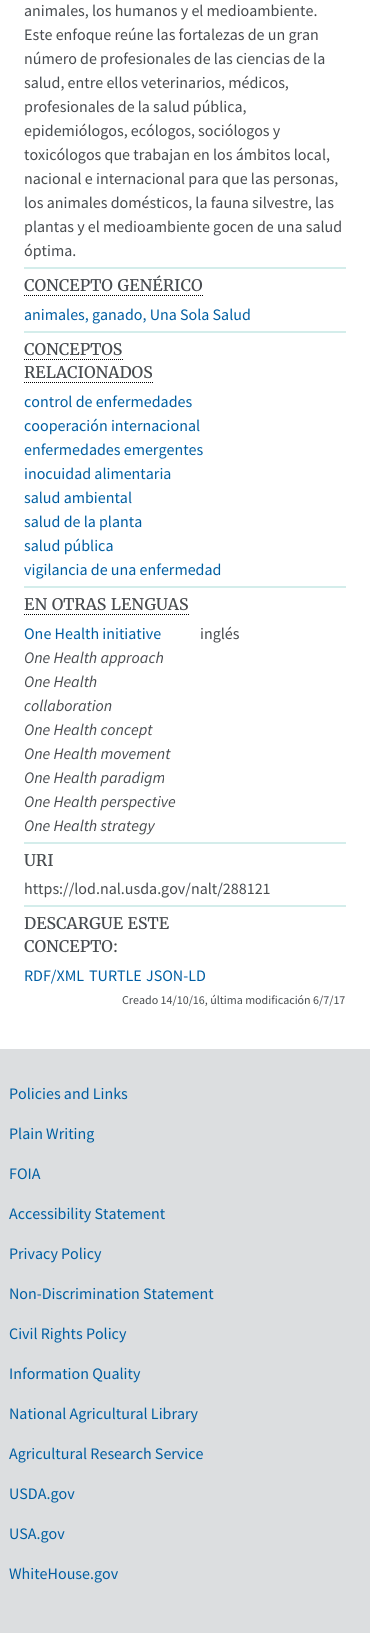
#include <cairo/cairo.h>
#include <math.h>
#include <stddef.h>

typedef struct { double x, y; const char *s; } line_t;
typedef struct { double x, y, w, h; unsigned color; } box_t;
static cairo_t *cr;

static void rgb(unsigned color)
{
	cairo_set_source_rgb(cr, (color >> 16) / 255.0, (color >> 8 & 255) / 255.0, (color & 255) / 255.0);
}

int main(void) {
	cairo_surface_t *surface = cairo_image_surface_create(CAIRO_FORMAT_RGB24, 370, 1633);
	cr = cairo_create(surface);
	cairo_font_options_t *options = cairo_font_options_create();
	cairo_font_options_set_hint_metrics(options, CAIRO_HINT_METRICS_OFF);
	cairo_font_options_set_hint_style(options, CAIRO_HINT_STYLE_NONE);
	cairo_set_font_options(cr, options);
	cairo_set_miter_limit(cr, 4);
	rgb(0xffffff);
	cairo_paint(cr);
	rgb(0xd4edeb);
	cairo_rectangle(cr, 24, 267, 322, 2);
	cairo_fill(cr);
	cairo_new_path(cr);
	cairo_move_to(cr, 24, 295.5);
	cairo_line_to(cr, 203, 295.5);
	rgb(0x000000);
	cairo_set_line_width(cr, 1);
	cairo_set_dash(cr, (double[]){1, 1}, 2, 0);
	cairo_stroke(cr);
	rgb(0xd4edeb);
	cairo_rectangle(cr, 24, 331, 322, 2);
	cairo_fill(cr);
	cairo_new_path(cr);
	cairo_move_to(cr, 24, 359.5);
	cairo_line_to(cr, 123, 359.5);
	rgb(0x000000);
	cairo_stroke(cr);
	cairo_new_path(cr);
	cairo_move_to(cr, 24, 382.5);
	cairo_line_to(cr, 153, 382.5);
	cairo_stroke(cr);
	rgb(0xd4edeb);
	cairo_rectangle(cr, 24, 586, 322, 2);
	cairo_fill(cr);
	cairo_new_path(cr);
	cairo_move_to(cr, 24, 614.5);
	cairo_line_to(cr, 189, 614.5);
	rgb(0x000000);
	cairo_stroke(cr);
	{
		static const box_t items[] = {
			{24, 842, 322, 2, 0xd4edeb},
			{24, 905, 322, 2, 0xd4edeb},
			{0, 1049, 370, 584, 0xdcdee0},
		};
		for (size_t i = 0; i < sizeof items / sizeof *items; i++) {
			rgb(items[i].color);
			cairo_rectangle(cr, items[i].x, items[i].y, items[i].w, items[i].h);
			cairo_fill(cr);
		}
	}
	cairo_select_font_face(cr, "Source Sans Pro", CAIRO_FONT_SLANT_NORMAL, CAIRO_FONT_WEIGHT_NORMAL);
	cairo_set_font_size(cr, 16);
	rgb(0x474b4f);
	{
		static const line_t items[] = {
			{24, 16, "animales, los humanos y el medioambiente."},
			{24, 40, "Este enfoque reúne las fortalezas de un gran"},
			{24, 64, "número de profesionales de las ciencias de la"},
			{24, 88, "salud, entre ellos veterinarios, médicos,"},
			{24, 112, "profesionales de la salud pública,"},
			{24, 136, "epidemiólogos, ecólogos, sociólogos y"},
			{24, 160, "toxicólogos que trabajan en los ámbitos local,"},
			{24, 184, "nacional e internacional para que las personas,"},
			{24, 208, "los animales domésticos, la fauna silvestre, las"},
			{24, 232, "plantas y el medioambiente gocen de una salud"},
			{24, 256, "óptima."},
		};
		for (size_t i = 0; i < sizeof items / sizeof *items; i++) {
			cairo_move_to(cr, items[i].x, items[i].y);
			cairo_show_text(cr, items[i].s);
		}
	}
	cairo_select_font_face(cr, "Merriweather", CAIRO_FONT_SLANT_NORMAL, CAIRO_FONT_WEIGHT_NORMAL);
	cairo_move_to(cr, 24, 291);
	cairo_show_text(cr, "CONCEPTO GENÉRICO");
	cairo_select_font_face(cr, "Source Sans Pro", CAIRO_FONT_SLANT_NORMAL, CAIRO_FONT_WEIGHT_NORMAL);
	rgb(0x005ea2);
	cairo_move_to(cr, 24, 320);
	cairo_show_text(cr, "animales, ganado, Una Sola Salud");
	cairo_select_font_face(cr, "Merriweather", CAIRO_FONT_SLANT_NORMAL, CAIRO_FONT_WEIGHT_NORMAL);
	rgb(0x474b4f);
	cairo_move_to(cr, 24, 355);
	cairo_show_text(cr, "CONCEPTOS");
	cairo_move_to(cr, 24, 378);
	cairo_show_text(cr, "RELACIONADOS");
	cairo_select_font_face(cr, "Source Sans Pro", CAIRO_FONT_SLANT_NORMAL, CAIRO_FONT_WEIGHT_NORMAL);
	rgb(0x005ea2);
	{
		static const line_t items[] = {
			{24, 407, "control de enfermedades"},
			{24, 431, "cooperación internacional"},
			{24, 455, "enfermedades emergentes"},
			{24, 479, "inocuidad alimentaria"},
			{24, 503, "salud ambiental"},
			{24, 527, "salud de la planta"},
			{24, 551, "salud pública"},
			{24, 575, "vigilancia de una enfermedad"},
		};
		for (size_t i = 0; i < sizeof items / sizeof *items; i++) {
			cairo_move_to(cr, items[i].x, items[i].y);
			cairo_show_text(cr, items[i].s);
		}
	}
	cairo_select_font_face(cr, "Merriweather", CAIRO_FONT_SLANT_NORMAL, CAIRO_FONT_WEIGHT_NORMAL);
	rgb(0x474b4f);
	cairo_move_to(cr, 24, 610);
	cairo_show_text(cr, "EN OTRAS LENGUAS");
	cairo_select_font_face(cr, "Source Sans Pro", CAIRO_FONT_SLANT_NORMAL, CAIRO_FONT_WEIGHT_NORMAL);
	rgb(0x005ea2);
	cairo_move_to(cr, 24, 639);
	cairo_show_text(cr, "One Health initiative");
	rgb(0x474b4f);
	cairo_move_to(cr, 200, 639);
	cairo_show_text(cr, "inglés");
	cairo_select_font_face(cr, "Source Sans Pro", CAIRO_FONT_SLANT_ITALIC, CAIRO_FONT_WEIGHT_NORMAL);
	{
		static const line_t items[] = {
			{24, 663, "One Health approach"},
			{24, 687, "One Health"},
			{24, 711, "collaboration"},
			{24, 735, "One Health concept"},
			{24, 759, "One Health movement"},
			{24, 783, "One Health paradigm"},
			{24, 807, "One Health perspective"},
			{24, 831, "One Health strategy"},
		};
		for (size_t i = 0; i < sizeof items / sizeof *items; i++) {
			cairo_move_to(cr, items[i].x, items[i].y);
			cairo_show_text(cr, items[i].s);
		}
	}
	cairo_select_font_face(cr, "Merriweather", CAIRO_FONT_SLANT_NORMAL, CAIRO_FONT_WEIGHT_NORMAL);
	cairo_move_to(cr, 24, 866);
	cairo_show_text(cr, "URI");
	cairo_select_font_face(cr, "Source Sans Pro", CAIRO_FONT_SLANT_NORMAL, CAIRO_FONT_WEIGHT_NORMAL);
	cairo_move_to(cr, 24, 894);
	cairo_show_text(cr, "https://lod.nal.usda.gov/nalt/288121");
	cairo_select_font_face(cr, "Merriweather", CAIRO_FONT_SLANT_NORMAL, CAIRO_FONT_WEIGHT_NORMAL);
	cairo_move_to(cr, 24, 929);
	cairo_show_text(cr, "DESCARGUE ESTE");
	cairo_move_to(cr, 24, 952);
	cairo_show_text(cr, "CONCEPTO:");
	cairo_select_font_face(cr, "Source Sans Pro", CAIRO_FONT_SLANT_NORMAL, CAIRO_FONT_WEIGHT_NORMAL);
	rgb(0x005ea2);
	{
		static const line_t items[] = {
			{24, 981, "RDF/XML"},
			{89, 981, "TURTLE"},
			{146, 981, "JSON-LD"},
		};
		for (size_t i = 0; i < sizeof items / sizeof *items; i++) {
			cairo_move_to(cr, items[i].x, items[i].y);
			cairo_show_text(cr, items[i].s);
		}
	}
	cairo_set_font_size(cr, 12);
	rgb(0x474b4f);
	cairo_move_to(cr, 122, 1004);
	cairo_show_text(cr, "Creado 14/10/16, última modificación 6/7/17");
	cairo_set_font_size(cr, 16);
	rgb(0x005ea2);
	{
		static const line_t items[] = {
			{9, 1099, "Policies and Links"},
			{9, 1139, "Plain Writing"},
			{9, 1179, "FOIA"},
			{9, 1219, "Accessibility Statement"},
			{9, 1259, "Privacy Policy"},
			{9, 1299, "Non-Discrimination Statement"},
			{9, 1339, "Civil Rights Policy"},
			{9, 1379, "Information Quality"},
			{9, 1419, "National Agricultural Library"},
			{9, 1459, "Agricultural Research Service"},
			{9, 1499, "USDA.gov"},
			{9, 1539, "USA.gov"},
			{9, 1579, "WhiteHouse.gov"},
		};
		for (size_t i = 0; i < sizeof items / sizeof *items; i++) {
			cairo_move_to(cr, items[i].x, items[i].y);
			cairo_show_text(cr, items[i].s);
		}
	}
	cairo_surface_write_to_png(surface, "page.png");
	cairo_font_options_destroy(options);
	cairo_destroy(cr);
	cairo_surface_destroy(surface);
	return 0;
}
